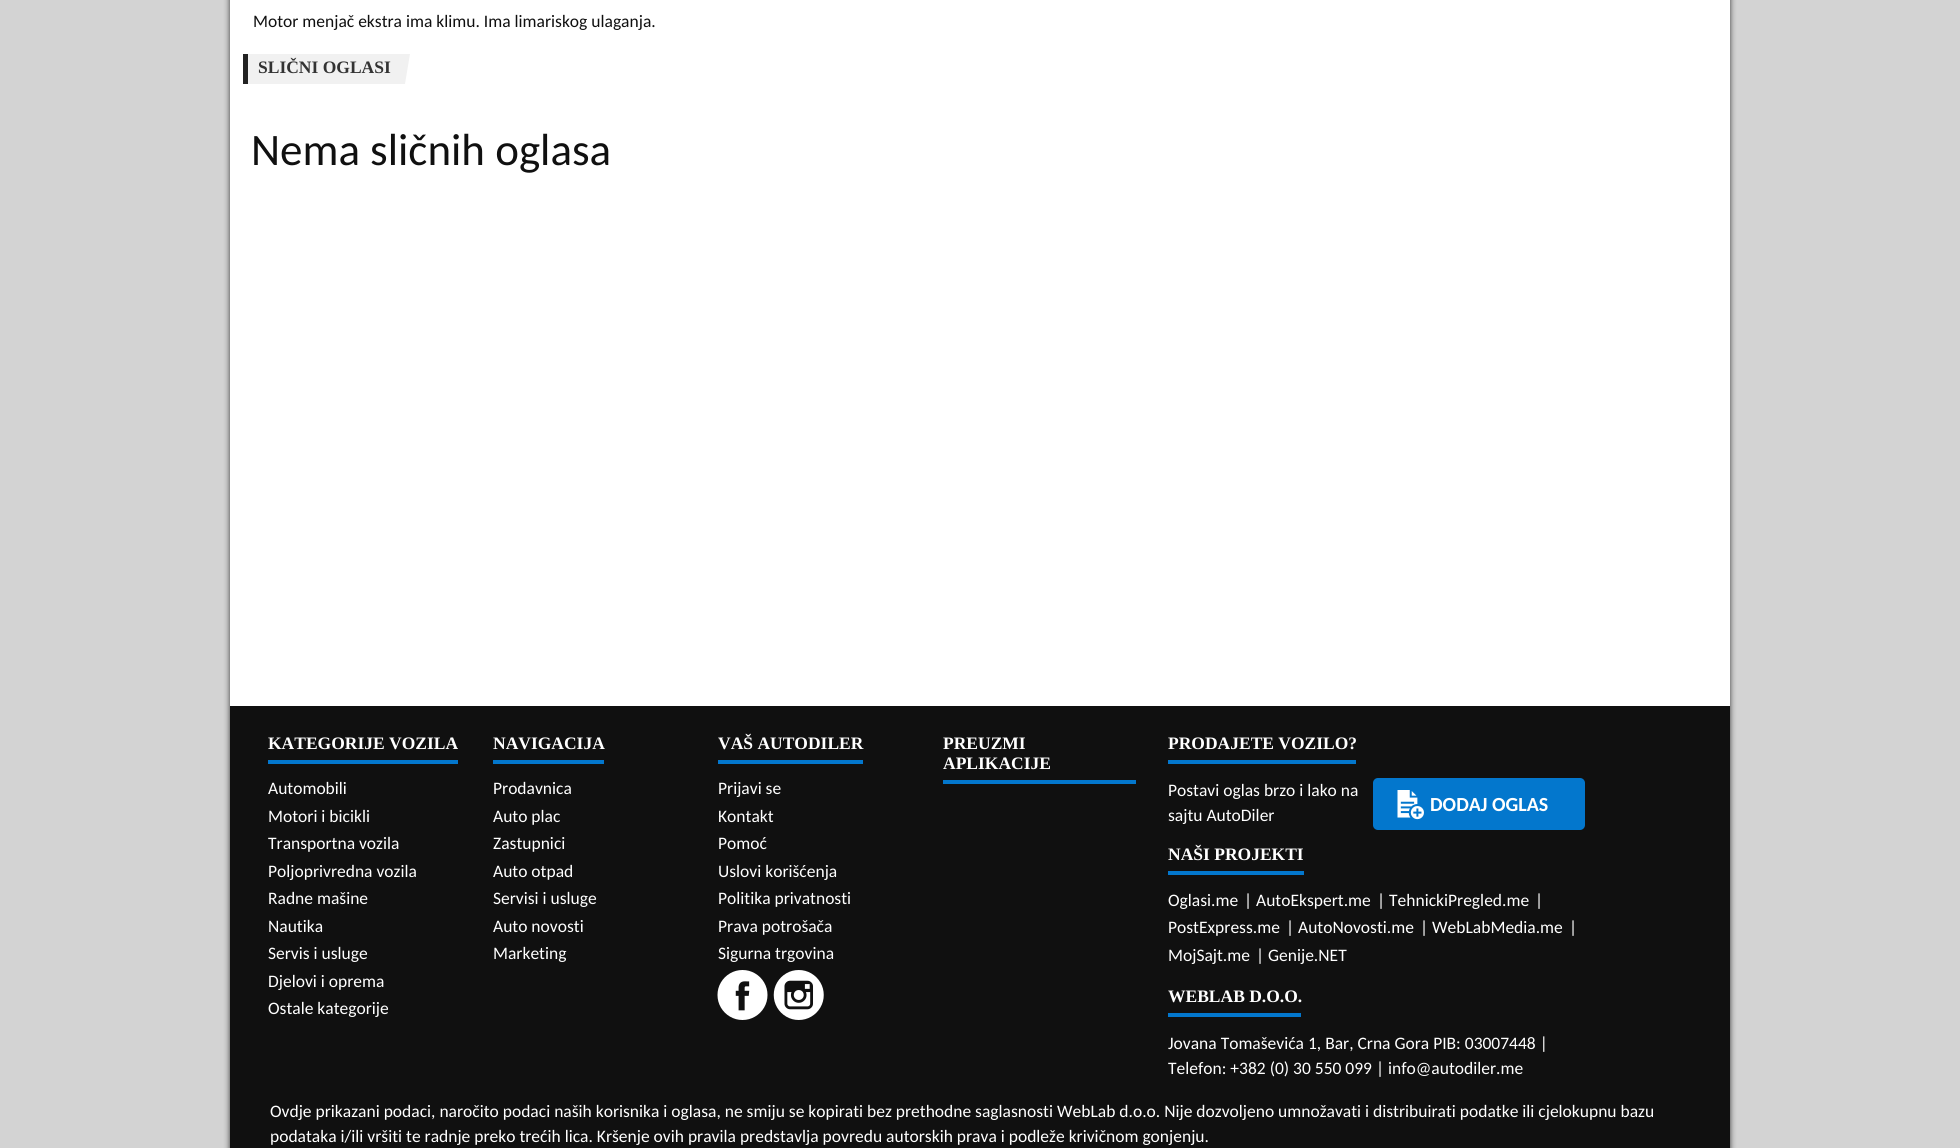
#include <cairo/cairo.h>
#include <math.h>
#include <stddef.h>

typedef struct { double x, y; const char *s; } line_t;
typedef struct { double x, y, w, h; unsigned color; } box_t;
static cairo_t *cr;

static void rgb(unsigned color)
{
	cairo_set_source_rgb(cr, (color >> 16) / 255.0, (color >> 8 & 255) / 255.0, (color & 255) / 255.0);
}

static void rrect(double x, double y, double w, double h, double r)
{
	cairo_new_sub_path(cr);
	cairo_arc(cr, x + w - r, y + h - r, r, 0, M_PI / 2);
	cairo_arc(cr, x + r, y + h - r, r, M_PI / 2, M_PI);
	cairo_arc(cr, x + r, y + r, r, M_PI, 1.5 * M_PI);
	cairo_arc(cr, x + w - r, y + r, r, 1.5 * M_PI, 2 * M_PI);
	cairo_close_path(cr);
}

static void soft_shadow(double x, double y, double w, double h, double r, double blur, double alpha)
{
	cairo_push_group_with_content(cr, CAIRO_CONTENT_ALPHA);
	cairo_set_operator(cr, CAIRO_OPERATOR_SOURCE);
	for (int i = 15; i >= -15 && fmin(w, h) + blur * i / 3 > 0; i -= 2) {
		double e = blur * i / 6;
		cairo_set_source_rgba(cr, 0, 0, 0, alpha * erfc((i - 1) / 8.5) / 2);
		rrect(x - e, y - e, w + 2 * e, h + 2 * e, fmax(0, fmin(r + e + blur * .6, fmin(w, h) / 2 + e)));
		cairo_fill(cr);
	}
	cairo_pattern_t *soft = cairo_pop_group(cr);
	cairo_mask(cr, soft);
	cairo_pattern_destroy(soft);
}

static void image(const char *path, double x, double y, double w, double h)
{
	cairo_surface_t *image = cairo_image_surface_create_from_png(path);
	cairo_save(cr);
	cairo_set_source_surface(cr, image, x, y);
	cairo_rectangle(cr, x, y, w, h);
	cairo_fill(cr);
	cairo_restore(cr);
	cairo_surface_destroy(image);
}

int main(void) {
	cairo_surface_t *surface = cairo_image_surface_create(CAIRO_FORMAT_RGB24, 1960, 1148);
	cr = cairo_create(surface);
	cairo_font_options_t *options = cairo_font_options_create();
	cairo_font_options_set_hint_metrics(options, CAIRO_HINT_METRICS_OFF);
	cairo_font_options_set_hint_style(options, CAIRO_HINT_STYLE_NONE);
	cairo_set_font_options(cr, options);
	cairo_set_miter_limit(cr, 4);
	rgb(0xd3d3d3);
	cairo_paint(cr);
	rgb(0x000000);
	soft_shadow(230, -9, 1500, 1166, 0, 3, 0.75);
	{
		static const box_t items[] = {
			{230, 0, 1500, 706, 0xffffff},
			{248, 54, 157, 30, 0xf1f1f1},
			{243, 54, 5, 30, 0x222222},
		};
		for (size_t i = 0; i < sizeof items / sizeof *items; i++) {
			rgb(items[i].color);
			cairo_rectangle(cr, items[i].x, items[i].y, items[i].w, items[i].h);
			cairo_fill(cr);
		}
	}
	rgb(0xf1f1f1);
	cairo_new_path(cr);
	cairo_move_to(cr, 405, 54);
	cairo_line_to(cr, 410, 54);
	cairo_line_to(cr, 405, 84);
	cairo_close_path(cr);
	cairo_fill(cr);
	{
		static const box_t items[] = {
			{230, 706, 1500, 442, 0x101010},
			{268, 760, 190, 4, 0x0377cd},
			{493, 760, 111, 4, 0x0377cd},
			{718, 760, 145, 4, 0x0377cd},
		};
		for (size_t i = 0; i < sizeof items / sizeof *items; i++) {
			rgb(items[i].color);
			cairo_rectangle(cr, items[i].x, items[i].y, items[i].w, items[i].h);
			cairo_fill(cr);
		}
	}
	image("img/1.png", 717, 970, 51, 50);
	image("img/2.png", 773, 970, 51, 50);
	cairo_rectangle(cr, 943, 780, 193, 4);
	cairo_fill(cr);
	cairo_rectangle(cr, 1168, 760, 188, 4);
	cairo_fill(cr);
	rrect(1373, 778, 212, 52, 5);
	cairo_fill(cr);
	image("img/3.png", 1397, 790, 27, 30);
	cairo_rectangle(cr, 1168, 871, 136, 4);
	cairo_fill(cr);
	cairo_rectangle(cr, 1168, 1013, 133, 4);
	cairo_fill(cr);
	cairo_select_font_face(cr, "Carlito", CAIRO_FONT_SLANT_NORMAL, CAIRO_FONT_WEIGHT_NORMAL);
	cairo_set_font_size(cr, 17.5);
	rgb(0x101010);
	cairo_move_to(cr, 253, 27);
	cairo_show_text(cr, "Motor menjač ekstra ima klimu. Ima limariskog ulaganja.");
	cairo_select_font_face(cr, "Liberation Serif", CAIRO_FONT_SLANT_NORMAL, CAIRO_FONT_WEIGHT_BOLD);
	rgb(0x333333);
	cairo_move_to(cr, 258, 73);
	cairo_show_text(cr, "SLIČNI OGLASI");
	cairo_select_font_face(cr, "Carlito", CAIRO_FONT_SLANT_NORMAL, CAIRO_FONT_WEIGHT_NORMAL);
	cairo_set_font_size(cr, 45);
	rgb(0x101010);
	cairo_move_to(cr, 251, 165);
	cairo_show_text(cr, "Nema sličnih oglasa");
	cairo_select_font_face(cr, "Liberation Serif", CAIRO_FONT_SLANT_NORMAL, CAIRO_FONT_WEIGHT_BOLD);
	cairo_set_font_size(cr, 17.5);
	rgb(0xffffff);
	cairo_move_to(cr, 268, 749);
	cairo_show_text(cr, "KATEGORIJE VOZILA");
	cairo_select_font_face(cr, "Carlito", CAIRO_FONT_SLANT_NORMAL, CAIRO_FONT_WEIGHT_NORMAL);
	{
		static const line_t items[] = {
			{268, 794, "Automobili"},
			{268, 822, "Motori i bicikli"},
			{268, 849, "Transportna vozila"},
			{268, 877, "Poljoprivredna vozila"},
			{268, 904, "Radne mašine"},
			{268, 932, "Nautika"},
			{268, 959, "Servis i usluge"},
			{268, 987, "Djelovi i oprema"},
			{268, 1014, "Ostale kategorije"},
		};
		for (size_t i = 0; i < sizeof items / sizeof *items; i++) {
			cairo_move_to(cr, items[i].x, items[i].y);
			cairo_show_text(cr, items[i].s);
		}
	}
	cairo_select_font_face(cr, "Liberation Serif", CAIRO_FONT_SLANT_NORMAL, CAIRO_FONT_WEIGHT_BOLD);
	cairo_move_to(cr, 493, 749);
	cairo_show_text(cr, "NAVIGACIJA");
	cairo_select_font_face(cr, "Carlito", CAIRO_FONT_SLANT_NORMAL, CAIRO_FONT_WEIGHT_NORMAL);
	{
		static const line_t items[] = {
			{493, 794, "Prodavnica"},
			{493, 822, "Auto plac"},
			{493, 849, "Zastupnici"},
			{493, 877, "Auto otpad"},
			{493, 904, "Servisi i usluge"},
			{493, 932, "Auto novosti"},
			{493, 959, "Marketing"},
		};
		for (size_t i = 0; i < sizeof items / sizeof *items; i++) {
			cairo_move_to(cr, items[i].x, items[i].y);
			cairo_show_text(cr, items[i].s);
		}
	}
	cairo_select_font_face(cr, "Liberation Serif", CAIRO_FONT_SLANT_NORMAL, CAIRO_FONT_WEIGHT_BOLD);
	cairo_move_to(cr, 718, 749);
	cairo_show_text(cr, "VAŠ AUTODILER");
	cairo_select_font_face(cr, "Carlito", CAIRO_FONT_SLANT_NORMAL, CAIRO_FONT_WEIGHT_NORMAL);
	{
		static const line_t items[] = {
			{718, 794, "Prijavi se"},
			{718, 822, "Kontakt"},
			{718, 849, "Pomoć"},
			{718, 877, "Uslovi korišćenja"},
			{718, 904, "Politika privatnosti"},
			{718, 932, "Prava potrošača"},
			{718, 959, "Sigurna trgovina"},
		};
		for (size_t i = 0; i < sizeof items / sizeof *items; i++) {
			cairo_move_to(cr, items[i].x, items[i].y);
			cairo_show_text(cr, items[i].s);
		}
	}
	cairo_select_font_face(cr, "Liberation Serif", CAIRO_FONT_SLANT_NORMAL, CAIRO_FONT_WEIGHT_BOLD);
	{
		static const line_t items[] = {
			{943, 749, "PREUZMI"},
			{943, 769, "APLIKACIJE"},
			{1168, 749, "PRODAJETE VOZILO?"},
		};
		for (size_t i = 0; i < sizeof items / sizeof *items; i++) {
			cairo_move_to(cr, items[i].x, items[i].y);
			cairo_show_text(cr, items[i].s);
		}
	}
	cairo_select_font_face(cr, "Carlito", CAIRO_FONT_SLANT_NORMAL, CAIRO_FONT_WEIGHT_NORMAL);
	cairo_move_to(cr, 1168, 796);
	cairo_show_text(cr, "Postavi oglas brzo i lako na");
	cairo_move_to(cr, 1168, 821);
	cairo_show_text(cr, "sajtu AutoDiler");
	cairo_select_font_face(cr, "Carlito", CAIRO_FONT_SLANT_NORMAL, CAIRO_FONT_WEIGHT_BOLD);
	cairo_set_font_size(cr, 20);
	cairo_move_to(cr, 1430, 811);
	cairo_show_text(cr, "DODAJ OGLAS");
	cairo_select_font_face(cr, "Liberation Serif", CAIRO_FONT_SLANT_NORMAL, CAIRO_FONT_WEIGHT_BOLD);
	cairo_set_font_size(cr, 17.5);
	cairo_move_to(cr, 1168, 860);
	cairo_show_text(cr, "NAŠI PROJEKTI");
	cairo_select_font_face(cr, "Carlito", CAIRO_FONT_SLANT_NORMAL, CAIRO_FONT_WEIGHT_NORMAL);
	{
		static const line_t items[] = {
			{1168, 906, "Oglasi.me"},
			{1244, 906, "| AutoEkspert.me"},
			{1377, 906, "| TehnickiPregled.me"},
			{1535, 906, "|"},
			{1168, 933, "PostExpress.me"},
			{1286, 933, "| AutoNovosti.me"},
			{1420, 933, "| WebLabMedia.me"},
			{1569, 933, "|"},
			{1168, 961, "MojSajt.me"},
			{1256, 961, "| Genije.NET"},
		};
		for (size_t i = 0; i < sizeof items / sizeof *items; i++) {
			cairo_move_to(cr, items[i].x, items[i].y);
			cairo_show_text(cr, items[i].s);
		}
	}
	cairo_select_font_face(cr, "Liberation Serif", CAIRO_FONT_SLANT_NORMAL, CAIRO_FONT_WEIGHT_BOLD);
	cairo_move_to(cr, 1168, 1002);
	cairo_show_text(cr, "WEBLAB D.O.O.");
	cairo_select_font_face(cr, "Carlito", CAIRO_FONT_SLANT_NORMAL, CAIRO_FONT_WEIGHT_NORMAL);
	{
		static const line_t items[] = {
			{1168, 1049, "Jovana Tomaševića 1, Bar, Crna Gora PIB: 03007448 |"},
			{1168, 1074, "Telefon: +382 (0) 30 550 099 | info@autodiler.me"},
			{270, 1117, "Ovdje prikazani podaci, naročito podaci naših korisnika i oglasa, ne smiju se kopirati bez prethodne saglasnosti WebLab d.o.o. Nije dozvoljeno umnožavati i distribuirati podatke ili cjelokupnu bazu"},
			{270, 1142, "podataka i/ili vršiti te radnje preko trećih lica. Kršenje ovih pravila predstavlja povredu autorskih prava i podleže krivičnom gonjenju."},
		};
		for (size_t i = 0; i < sizeof items / sizeof *items; i++) {
			cairo_move_to(cr, items[i].x, items[i].y);
			cairo_show_text(cr, items[i].s);
		}
	}
	cairo_surface_write_to_png(surface, "page.png");
	cairo_font_options_destroy(options);
	cairo_destroy(cr);
	cairo_surface_destroy(surface);
	return 0;
}
